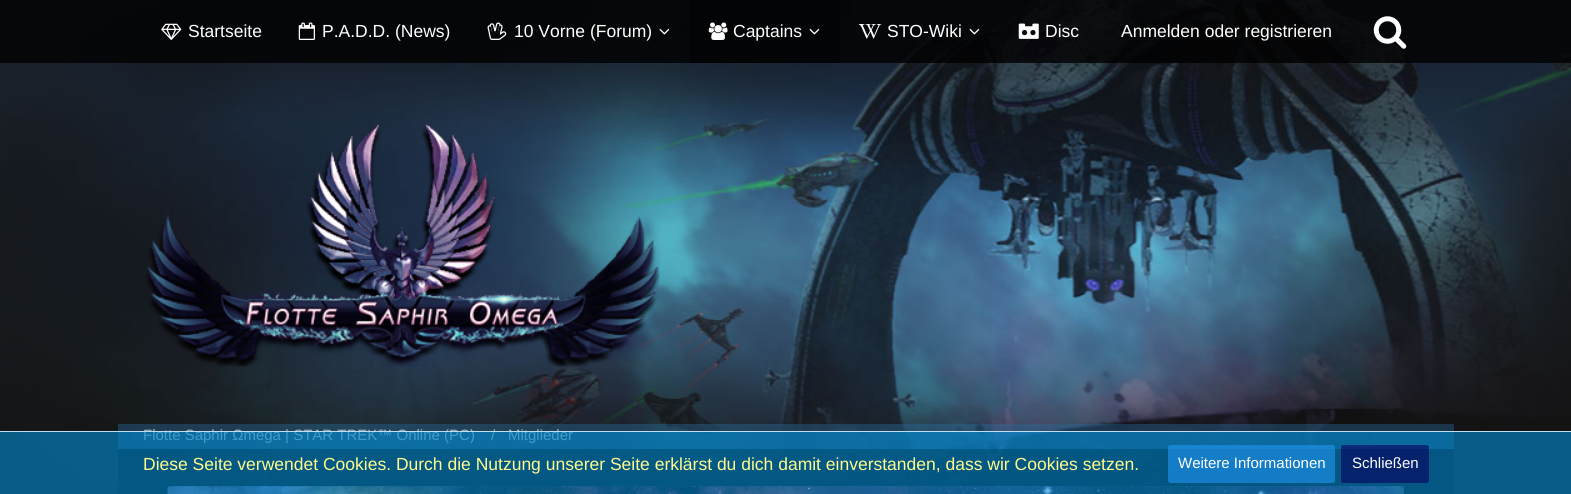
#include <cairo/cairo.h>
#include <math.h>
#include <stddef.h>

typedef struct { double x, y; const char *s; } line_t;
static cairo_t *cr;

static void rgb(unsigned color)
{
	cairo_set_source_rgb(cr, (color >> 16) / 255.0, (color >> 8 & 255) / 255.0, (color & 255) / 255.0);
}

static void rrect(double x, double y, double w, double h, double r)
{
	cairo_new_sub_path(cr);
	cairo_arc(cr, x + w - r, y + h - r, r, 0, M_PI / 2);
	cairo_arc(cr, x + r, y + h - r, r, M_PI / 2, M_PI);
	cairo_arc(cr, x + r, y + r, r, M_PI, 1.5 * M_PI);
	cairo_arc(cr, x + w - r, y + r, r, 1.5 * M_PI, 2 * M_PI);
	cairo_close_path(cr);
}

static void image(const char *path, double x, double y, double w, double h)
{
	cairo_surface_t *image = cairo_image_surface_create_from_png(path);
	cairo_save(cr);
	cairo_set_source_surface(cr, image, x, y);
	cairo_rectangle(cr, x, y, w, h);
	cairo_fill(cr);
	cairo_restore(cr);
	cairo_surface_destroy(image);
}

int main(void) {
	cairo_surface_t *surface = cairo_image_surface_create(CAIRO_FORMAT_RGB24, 1571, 494);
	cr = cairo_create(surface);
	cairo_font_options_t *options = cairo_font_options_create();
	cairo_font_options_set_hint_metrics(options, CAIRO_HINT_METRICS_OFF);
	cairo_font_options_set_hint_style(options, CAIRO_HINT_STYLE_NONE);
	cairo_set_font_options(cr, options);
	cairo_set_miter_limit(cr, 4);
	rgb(0xffffff);
	cairo_paint(cr);
	image("img/1.png", 0, 0, 1571, 494);
	cairo_set_source_rgba(cr, 0, 0, 0, 0.8);
	cairo_rectangle(cr, 0, 0, 1571, 63);
	cairo_fill(cr);
	image("img/2.png", 161, 23, 21, 17);
	image("img/3.png", 298, 22, 17, 18);
	image("img/4.png", 487, 22, 20, 18);
	image("img/5.png", 659, 28, 11, 7);
	rgb(0x030405);
	cairo_rectangle(cr, 690, 0, 150, 63);
	cairo_fill(cr);
	image("img/6.png", 708, 22, 20, 18);
	image("img/7.png", 809, 28, 11, 7);
	image("img/8.png", 858, 24, 24, 15);
	image("img/9.png", 969, 28, 11, 7);
	image("img/10.png", 1018, 23, 21, 16);
	image("img/11.png", 1373, 16, 34, 33);
	image("img/12.png", 146, 124, 514, 243);
	cairo_set_source_rgba(cr, 0.157, 0.427, 0.616, 0.4);
	cairo_rectangle(cr, 118, 424, 1336, 25);
	cairo_fill(cr);
	cairo_set_source_rgba(cr, 0, 0, 0, 0.6);
	cairo_rectangle(cr, 118, 449, 1336, 45);
	cairo_fill(cr);
	cairo_set_source_rgba(cr, 0, 0, 0, 0.2);
	cairo_rectangle(cr, 268, 461, 1041, 33);
	cairo_fill(cr);
	cairo_set_source_rgba(cr, 0.157, 0.427, 0.616, 0.4);
	cairo_rectangle(cr, 168, 486, 1236, 8);
	cairo_fill(cr);
	image("img/13.png", 167, 486, 1237, 8);
	cairo_select_font_face(cr, "Liberation Sans", CAIRO_FONT_SLANT_NORMAL, CAIRO_FONT_WEIGHT_NORMAL);
	cairo_set_font_size(cr, 17.5);
	rgb(0xffffff);
	{
		static const line_t items[] = {
			{188, 37, "Startseite"},
			{322, 37, "P.A.D.D. (News)"},
			{514, 37, "10 Vorne (Forum)"},
			{733, 37, "Captains"},
			{887, 37, "STO-Wiki"},
			{1045, 37, "Disc"},
			{1121, 37, "Anmelden oder registrieren"},
		};
		for (size_t i = 0; i < sizeof items / sizeof *items; i++) {
			cairo_move_to(cr, items[i].x, items[i].y);
			cairo_show_text(cr, items[i].s);
		}
	}
	cairo_set_font_size(cr, 15);
	rgb(0xa6b3bc);
	cairo_move_to(cr, 143, 440);
	cairo_show_text(cr, "Flotte Saphir Ωmega | STAR TREK™ Online (PC)");
	rgb(0xaaaaaa);
	cairo_move_to(cr, 491, 440);
	cairo_show_text(cr, "/");
	rgb(0xa6b3bc);
	cairo_move_to(cr, 508, 440);
	cairo_show_text(cr, "Mitglieder");
	cairo_set_source_rgba(cr, 0, 0.553, 0.827, 0.6);
	cairo_rectangle(cr, 0, 432, 1571, 62);
	cairo_fill(cr);
	rgb(0xbcdff1);
	cairo_rectangle(cr, 0, 431, 1571, 1);
	cairo_fill(cr);
	cairo_set_font_size(cr, 17.5);
	rgb(0xfffb8d);
	cairo_move_to(cr, 143, 470);
	cairo_show_text(cr, "Diese Seite verwendet Cookies. Durch die Nutzung unserer Seite erklärst du dich damit einverstanden, dass wir Cookies setzen.");
	cairo_set_source_rgba(cr, 0.129, 0.588, 0.953, 0.6);
	rrect(1168, 445, 167, 38, 2.5);
	cairo_fill(cr);
	cairo_set_font_size(cr, 15);
	rgb(0xffffff);
	cairo_move_to(cr, 1178, 468);
	cairo_show_text(cr, "Weitere Informationen");
	cairo_set_source_rgba(cr, 0.031, 0.004, 0.373, 0.6);
	rrect(1341, 445, 88, 38, 2.5);
	cairo_fill(cr);
	rgb(0xffffff);
	cairo_move_to(cr, 1352, 468);
	cairo_show_text(cr, "Schließen");
	cairo_surface_write_to_png(surface, "page.png");
	cairo_font_options_destroy(options);
	cairo_destroy(cr);
	cairo_surface_destroy(surface);
	return 0;
}
